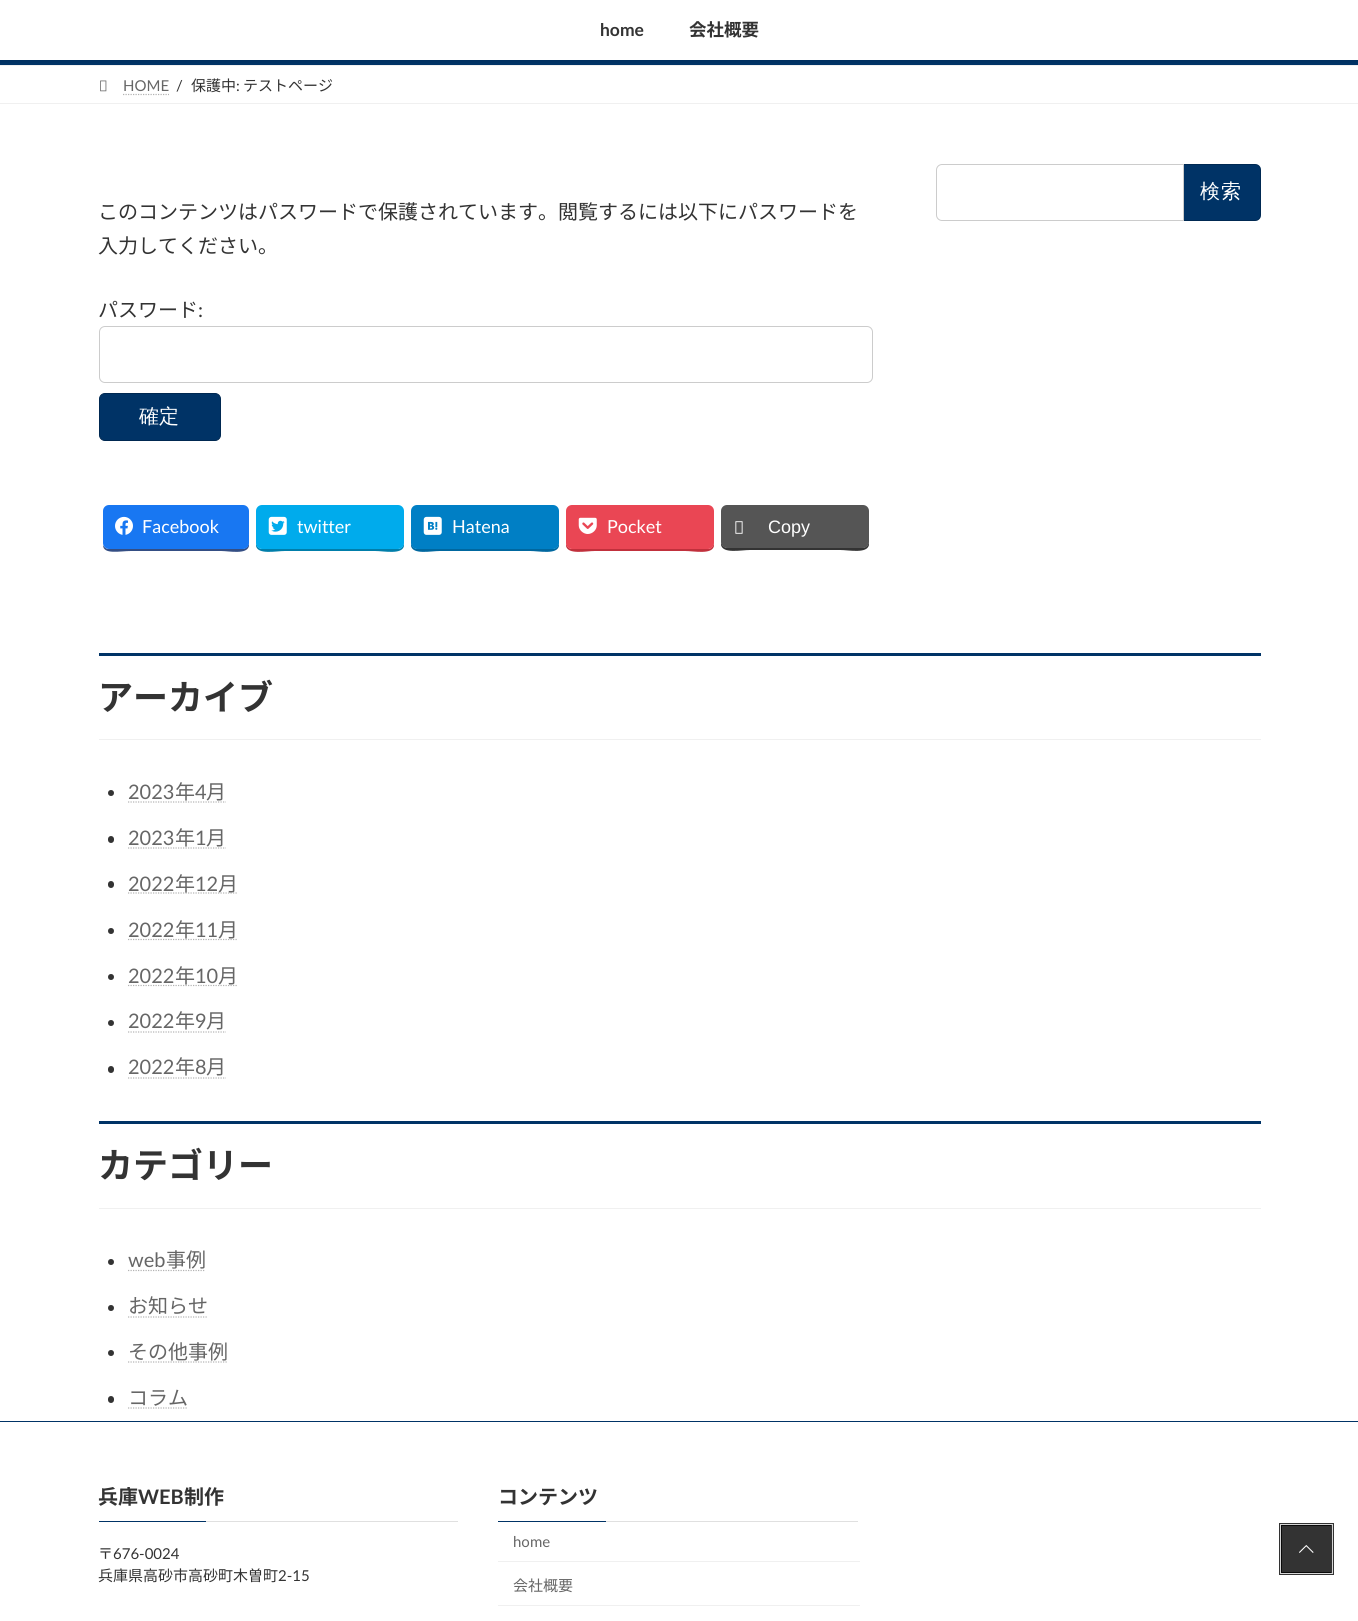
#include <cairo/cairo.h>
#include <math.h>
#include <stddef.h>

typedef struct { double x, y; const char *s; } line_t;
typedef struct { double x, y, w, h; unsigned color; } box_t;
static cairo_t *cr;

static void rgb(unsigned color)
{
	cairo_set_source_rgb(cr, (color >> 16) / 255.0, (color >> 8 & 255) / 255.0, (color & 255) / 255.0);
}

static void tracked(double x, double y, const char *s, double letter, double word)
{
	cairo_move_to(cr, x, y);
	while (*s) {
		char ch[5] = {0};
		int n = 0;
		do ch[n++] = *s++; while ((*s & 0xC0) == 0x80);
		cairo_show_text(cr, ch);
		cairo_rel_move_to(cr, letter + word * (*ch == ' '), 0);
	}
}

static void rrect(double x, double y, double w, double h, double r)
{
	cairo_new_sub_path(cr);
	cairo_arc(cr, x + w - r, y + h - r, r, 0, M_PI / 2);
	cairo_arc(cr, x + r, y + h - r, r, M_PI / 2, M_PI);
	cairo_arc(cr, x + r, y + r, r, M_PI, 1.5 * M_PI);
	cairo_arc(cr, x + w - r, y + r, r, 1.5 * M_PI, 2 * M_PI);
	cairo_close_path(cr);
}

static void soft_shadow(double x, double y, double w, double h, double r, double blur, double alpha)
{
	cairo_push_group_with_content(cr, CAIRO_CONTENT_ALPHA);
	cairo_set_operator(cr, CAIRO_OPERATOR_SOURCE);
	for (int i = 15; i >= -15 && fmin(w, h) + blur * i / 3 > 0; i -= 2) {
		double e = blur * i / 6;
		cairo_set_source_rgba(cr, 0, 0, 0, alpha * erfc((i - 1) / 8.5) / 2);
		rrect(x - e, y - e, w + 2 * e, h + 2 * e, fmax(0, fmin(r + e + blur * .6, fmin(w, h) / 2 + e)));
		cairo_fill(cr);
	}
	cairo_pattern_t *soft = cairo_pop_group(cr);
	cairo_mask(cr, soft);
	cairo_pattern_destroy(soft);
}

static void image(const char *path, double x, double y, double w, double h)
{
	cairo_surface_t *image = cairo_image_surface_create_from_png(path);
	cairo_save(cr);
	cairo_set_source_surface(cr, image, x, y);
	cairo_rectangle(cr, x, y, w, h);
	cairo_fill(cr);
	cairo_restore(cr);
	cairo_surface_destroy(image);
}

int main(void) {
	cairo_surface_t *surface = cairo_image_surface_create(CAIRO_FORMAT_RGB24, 1358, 1621);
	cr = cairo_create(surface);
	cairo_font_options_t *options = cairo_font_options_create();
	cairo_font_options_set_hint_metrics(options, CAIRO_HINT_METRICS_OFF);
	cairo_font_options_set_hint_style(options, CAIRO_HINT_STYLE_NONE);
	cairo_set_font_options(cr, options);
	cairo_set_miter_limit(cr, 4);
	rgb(0xffffff);
	cairo_paint(cr);
	rgb(0x003366);
	cairo_rectangle(cr, 0, 60, 1358, 5);
	cairo_fill(cr);
	rgb(0xf0f0f0);
	cairo_rectangle(cr, 0, 65, 1358, 1);
	cairo_fill(cr);
	rgb(0x000000);
	soft_shadow(0, 1, 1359, 60, 0, 2, 0.1);
	rgb(0xffffff);
	cairo_rectangle(cr, 0, 0, 1358, 60);
	cairo_fill(cr);
	rgb(0xf0f0f0);
	cairo_rectangle(cr, 0, 103, 1358, 1);
	cairo_fill(cr);
	image("img/1.png", 100, 80, 7, 12);
	cairo_new_path(cr);
	cairo_move_to(cr, 123, 94.5);
	cairo_line_to(cr, 169, 94.5);
	rgb(0xb3b3b3);
	cairo_set_line_width(cr, 1.2);
	cairo_set_dash(cr, (double[]){1.25, 1.25}, 2, 0);
	cairo_stroke(cr);
	cairo_new_path(cr);
	cairo_move_to(cr, 942, 164.5);
	cairo_line_to(cr, 1183.5, 164.5);
	cairo_line_to(cr, 1183.5, 220.5);
	cairo_line_to(cr, 942, 220.5);
	cairo_curve_to(cr, 939, 220.5, 936.5, 218, 936.5, 215);
	cairo_line_to(cr, 936.5, 170);
	cairo_curve_to(cr, 936.5, 167, 939, 164.5, 942, 164.5);
	cairo_close_path(cr);
	rgb(0xcccccc);
	cairo_set_line_width(cr, 1);
	cairo_set_dash(cr, NULL, 0, 0);
	cairo_stroke(cr);
	rgb(0x003366);
	cairo_new_path(cr);
	cairo_move_to(cr, 1184, 164);
	cairo_line_to(cr, 1255, 164);
	cairo_curve_to(cr, 1258.5, 164, 1261, 166.5, 1261, 170);
	cairo_line_to(cr, 1261, 215);
	cairo_curve_to(cr, 1261, 218.5, 1258.5, 221, 1255, 221);
	cairo_line_to(cr, 1184, 221);
	cairo_close_path(cr);
	cairo_fill(cr);
	cairo_set_source_rgba(cr, 0, 0, 0, 0.2);
	cairo_set_fill_rule(cr, CAIRO_FILL_RULE_EVEN_ODD);
	cairo_new_path(cr);
	cairo_move_to(cr, 1184, 164);
	cairo_line_to(cr, 1255, 164);
	cairo_curve_to(cr, 1258, 164, 1261, 167, 1261, 170);
	cairo_line_to(cr, 1261, 215);
	cairo_curve_to(cr, 1261, 218, 1258, 221, 1255, 221);
	cairo_line_to(cr, 1184, 221);
	cairo_close_path(cr);
	cairo_move_to(cr, 1184, 165);
	cairo_line_to(cr, 1255, 165);
	cairo_curve_to(cr, 1258, 165, 1260, 167, 1260, 170);
	cairo_line_to(cr, 1260, 215);
	cairo_curve_to(cr, 1260, 218, 1258, 220, 1255, 220);
	cairo_line_to(cr, 1184, 220);
	cairo_close_path(cr);
	cairo_fill(cr);
	rrect(99.5, 326.5, 773, 56, 5.5);
	rgb(0xcccccc);
	cairo_stroke(cr);
	rgb(0x003366);
	rrect(99.5, 393.5, 121, 47, 5.5);
	cairo_fill_preserve(cr);
	rgb(0x002851);
	cairo_stroke(cr);
	rgb(0x344e84);
	cairo_set_fill_rule(cr, CAIRO_FILL_RULE_WINDING);
	cairo_new_path(cr);
	cairo_move_to(cr, 103, 545);
	cairo_curve_to(cr, 103, 555, 120, 551, 131, 551);
	cairo_line_to(cr, 221, 551);
	cairo_curve_to(cr, 229, 551, 247, 555, 249, 546);
	cairo_line_to(cr, 249, 512);
	cairo_line_to(cr, 249, 542);
	cairo_curve_to(cr, 249, 546, 246, 549, 242, 549);
	cairo_line_to(cr, 109, 549);
	cairo_curve_to(cr, 106, 549, 104, 547, 103, 545);
	cairo_close_path(cr);
	cairo_fill(cr);
	rgb(0x1877f2);
	rrect(103, 505, 146, 44, 6);
	cairo_fill(cr);
	image("img/2.png", 115, 516, 18, 19);
	rgb(0x007eaa);
	cairo_new_path(cr);
	cairo_move_to(cr, 256, 512);
	cairo_line_to(cr, 256, 546);
	cairo_curve_to(cr, 258, 555, 276, 551, 285, 551);
	cairo_line_to(cr, 375, 551);
	cairo_curve_to(cr, 384, 551, 402, 555, 404, 546);
	cairo_line_to(cr, 404, 512);
	cairo_line_to(cr, 404, 542);
	cairo_curve_to(cr, 404, 546, 401, 549, 398, 549);
	cairo_line_to(cr, 262, 549);
	cairo_curve_to(cr, 259, 549, 256, 546, 256, 542);
	cairo_close_path(cr);
	cairo_fill(cr);
	rgb(0x00abec);
	rrect(256, 505, 148, 44, 6);
	cairo_fill(cr);
	image("img/3.png", 268, 516, 19, 19);
	rgb(0x00679f);
	cairo_new_path(cr);
	cairo_move_to(cr, 411, 512);
	cairo_line_to(cr, 411, 546);
	cairo_curve_to(cr, 413, 555, 431, 551, 440, 551);
	cairo_line_to(cr, 530, 551);
	cairo_curve_to(cr, 539, 551, 557, 555, 559, 546);
	cairo_line_to(cr, 559, 512);
	cairo_line_to(cr, 559, 542);
	cairo_curve_to(cr, 559, 546, 556, 549, 552, 549);
	cairo_line_to(cr, 418, 549);
	cairo_curve_to(cr, 414, 549, 411, 546, 411, 542);
	cairo_close_path(cr);
	cairo_fill(cr);
	rgb(0x007fc5);
	rrect(411, 505, 148, 44, 6);
	cairo_fill(cr);
	image("img/4.png", 423, 516, 19, 19);
	rgb(0xc1303c);
	cairo_new_path(cr);
	cairo_move_to(cr, 566, 512);
	cairo_line_to(cr, 566, 546);
	cairo_curve_to(cr, 568, 555, 586, 551, 595, 551);
	cairo_line_to(cr, 685, 551);
	cairo_curve_to(cr, 694, 551, 712, 555, 714, 546);
	cairo_line_to(cr, 714, 512);
	cairo_line_to(cr, 714, 542);
	cairo_curve_to(cr, 714, 546, 711, 549, 708, 549);
	cairo_line_to(cr, 572, 549);
	cairo_curve_to(cr, 569, 549, 566, 546, 566, 542);
	cairo_close_path(cr);
	cairo_fill(cr);
	rgb(0xea4654);
	rrect(566, 505, 148, 44, 6);
	cairo_fill(cr);
	image("img/5.png", 578, 517, 19, 17);
	rgb(0x333333);
	cairo_new_path(cr);
	cairo_move_to(cr, 721, 512);
	cairo_line_to(cr, 721, 545);
	cairo_curve_to(cr, 723, 554, 741, 550, 750, 550);
	cairo_line_to(cr, 840, 550);
	cairo_curve_to(cr, 849, 550, 867, 554, 869, 545);
	cairo_line_to(cr, 869, 512);
	cairo_line_to(cr, 869, 541);
	cairo_curve_to(cr, 869, 545, 866, 548, 862, 548);
	cairo_line_to(cr, 728, 548);
	cairo_curve_to(cr, 724, 548, 721, 545, 721, 541);
	cairo_close_path(cr);
	cairo_fill(cr);
	rgb(0x555555);
	rrect(721, 505, 148, 43, 6);
	cairo_fill(cr);
	image("img/6.png", 735, 521, 8, 13);
	rgb(0x003366);
	cairo_rectangle(cr, 99, 653, 1162, 3);
	cairo_fill(cr);
	rgb(0xf0f0f0);
	cairo_rectangle(cr, 99, 739, 1162, 1);
	cairo_fill(cr);
	rgb(0x333333);
	cairo_arc(cr, 111, 793, 3, 0, 2 * M_PI);
	cairo_fill(cr);
	cairo_new_path(cr);
	cairo_move_to(cr, 128, 802);
	cairo_line_to(cr, 226, 802);
	rgb(0xb3b3b3);
	cairo_set_line_width(cr, 1.2);
	cairo_set_dash(cr, (double[]){1.25, 1.25}, 2, 0);
	cairo_stroke(cr);
	rgb(0x333333);
	rrect(108, 836, 6, 7, 3);
	cairo_fill(cr);
	cairo_new_path(cr);
	cairo_move_to(cr, 128, 848);
	cairo_line_to(cr, 226, 848);
	rgb(0xb3b3b3);
	cairo_stroke(cr);
	rgb(0x333333);
	rrect(108, 881, 6, 7, 3);
	cairo_fill(cr);
	cairo_new_path(cr);
	cairo_move_to(cr, 128, 893);
	cairo_line_to(cr, 237.5, 893);
	rgb(0xb3b3b3);
	cairo_stroke(cr);
	rgb(0x333333);
	cairo_arc(cr, 111, 931, 3, 0, 2 * M_PI);
	cairo_fill(cr);
	cairo_new_path(cr);
	cairo_move_to(cr, 128, 939.5);
	cairo_line_to(cr, 237.5, 939.5);
	rgb(0xb3b3b3);
	cairo_stroke(cr);
	rgb(0x333333);
	cairo_arc(cr, 111, 977, 3, 0, 2 * M_PI);
	cairo_fill(cr);
	cairo_new_path(cr);
	cairo_move_to(cr, 128, 985.5);
	cairo_line_to(cr, 237.5, 985.5);
	rgb(0xb3b3b3);
	cairo_stroke(cr);
	rgb(0x333333);
	cairo_arc(cr, 111, 1023, 3, 0, 2 * M_PI);
	cairo_fill(cr);
	cairo_new_path(cr);
	cairo_move_to(cr, 128, 1032);
	cairo_line_to(cr, 226, 1032);
	rgb(0xb3b3b3);
	cairo_stroke(cr);
	rgb(0x333333);
	rrect(108, 1066, 6, 7, 3);
	cairo_fill(cr);
	cairo_new_path(cr);
	cairo_move_to(cr, 128, 1078);
	cairo_line_to(cr, 226, 1078);
	rgb(0xb3b3b3);
	cairo_stroke(cr);
	rgb(0x003366);
	cairo_rectangle(cr, 99, 1121, 1162, 3);
	cairo_fill(cr);
	rgb(0xf0f0f0);
	cairo_rectangle(cr, 99, 1208, 1162, 1);
	cairo_fill(cr);
	rgb(0x333333);
	cairo_arc(cr, 111, 1262, 3, 0, 2 * M_PI);
	cairo_fill(cr);
	cairo_new_path(cr);
	cairo_move_to(cr, 128, 1270.5);
	cairo_line_to(cr, 205.5, 1270.5);
	rgb(0xb3b3b3);
	cairo_stroke(cr);
	rgb(0x333333);
	cairo_arc(cr, 111, 1308, 3, 0, 2 * M_PI);
	cairo_fill(cr);
	cairo_new_path(cr);
	cairo_move_to(cr, 128, 1317);
	cairo_line_to(cr, 208, 1317);
	rgb(0xb3b3b3);
	cairo_stroke(cr);
	rgb(0x333333);
	cairo_arc(cr, 111, 1353, 3, 0, 2 * M_PI);
	cairo_fill(cr);
	cairo_new_path(cr);
	cairo_move_to(cr, 128, 1362);
	cairo_line_to(cr, 228, 1362);
	rgb(0xb3b3b3);
	cairo_stroke(cr);
	rgb(0x333333);
	rrect(108, 1396, 6, 7, 3);
	cairo_fill(cr);
	cairo_new_path(cr);
	cairo_move_to(cr, 128, 1408);
	cairo_line_to(cr, 188, 1408);
	rgb(0xb3b3b3);
	cairo_stroke(cr);
	{
		static const box_t items[] = {
			{0, 1421, 1358, 1, 0x003366},
			{206, 1521, 252, 1, 0xe0e0e0},
			{99, 1521, 107, 1, 0x003366},
			{606, 1521, 252, 1, 0xe0e0e0},
			{498, 1521, 108, 1, 0x003366},
			{498, 1561, 362, 1, 0xf0f0f0},
			{498, 1605, 362, 1, 0xf0f0f0},
		};
		for (size_t i = 0; i < sizeof items / sizeof *items; i++) {
			rgb(items[i].color);
			cairo_rectangle(cr, items[i].x, items[i].y, items[i].w, items[i].h);
			cairo_fill(cr);
		}
	}
	cairo_rectangle(cr, 1280.5, 1524.5, 52, 49);
	rgb(0x333333);
	cairo_set_line_width(cr, 3);
	cairo_set_dash(cr, NULL, 0, 0);
	cairo_stroke(cr);
	cairo_rectangle(cr, 1280.5, 1524.5, 52, 49);
	rgb(0xd6d6d6);
	cairo_set_line_width(cr, 1);
	cairo_stroke(cr);
	cairo_set_source_rgba(cr, 0, 0, 0, 0.8);
	cairo_rectangle(cr, 1281, 1525, 50, 48);
	cairo_fill(cr);
	image("img/7.png", 1299, 1545, 15, 8);
	cairo_select_font_face(cr, "Lato", CAIRO_FONT_SLANT_NORMAL, CAIRO_FONT_WEIGHT_BOLD);
	cairo_set_font_size(cr, 17.5);
	rgb(0x333333);
	cairo_move_to(cr, 600, 36);
	cairo_show_text(cr, "home");
	cairo_select_font_face(cr, "Noto Sans JP", CAIRO_FONT_SLANT_NORMAL, CAIRO_FONT_WEIGHT_BOLD);
	cairo_move_to(cr, 689, 36);
	cairo_show_text(cr, "会社概要");
	cairo_select_font_face(cr, "Lato", CAIRO_FONT_SLANT_NORMAL, CAIRO_FONT_WEIGHT_NORMAL);
	cairo_set_font_size(cr, 15);
	rgb(0x666666);
	cairo_move_to(cr, 123, 91);
	cairo_show_text(cr, "HOME");
	rgb(0x333333);
	cairo_move_to(cr, 176, 91);
	cairo_show_text(cr, "/");
	cairo_select_font_face(cr, "Noto Sans JP", CAIRO_FONT_SLANT_NORMAL, CAIRO_FONT_WEIGHT_NORMAL);
	cairo_move_to(cr, 191, 91);
	cairo_show_text(cr, "保護中");
	cairo_select_font_face(cr, "Lato", CAIRO_FONT_SLANT_NORMAL, CAIRO_FONT_WEIGHT_NORMAL);
	cairo_move_to(cr, 236, 91);
	cairo_show_text(cr, ":");
	cairo_select_font_face(cr, "Noto Sans JP", CAIRO_FONT_SLANT_NORMAL, CAIRO_FONT_WEIGHT_NORMAL);
	cairo_move_to(cr, 243, 91);
	cairo_show_text(cr, "テストページ");
	cairo_select_font_face(cr, "WenQuanYi Zen Hei Medium", CAIRO_FONT_SLANT_NORMAL, CAIRO_FONT_WEIGHT_NORMAL);
	cairo_set_font_size(cr, 20);
	rgb(0xffffff);
	tracked(1200, 198, "検索", 1, 0);
	cairo_select_font_face(cr, "Noto Sans JP", CAIRO_FONT_SLANT_NORMAL, CAIRO_FONT_WEIGHT_NORMAL);
	rgb(0x333333);
	{
		static const line_t items[] = {
			{98, 219, "このコンテンツはパスワードで保護されています。閲覧するには以下にパスワードを"},
			{98, 253, "入力してください。"},
			{98, 317, "パスワード"},
		};
		for (size_t i = 0; i < sizeof items / sizeof *items; i++) {
			cairo_move_to(cr, items[i].x, items[i].y);
			cairo_show_text(cr, items[i].s);
		}
	}
	cairo_select_font_face(cr, "Lato", CAIRO_FONT_SLANT_NORMAL, CAIRO_FONT_WEIGHT_NORMAL);
	cairo_move_to(cr, 198, 317);
	cairo_show_text(cr, ":");
	cairo_select_font_face(cr, "WenQuanYi Zen Hei Medium", CAIRO_FONT_SLANT_NORMAL, CAIRO_FONT_WEIGHT_NORMAL);
	rgb(0xffffff);
	cairo_move_to(cr, 139, 423);
	cairo_show_text(cr, "確定");
	cairo_select_font_face(cr, "Lato", CAIRO_FONT_SLANT_NORMAL, CAIRO_FONT_WEIGHT_NORMAL);
	cairo_set_font_size(cr, 18);
	{
		static const line_t items[] = {
			{142, 533, "Facebook"},
			{297, 533, "twitter"},
			{452, 533, "Hatena"},
			{607, 533, "Pocket"},
		};
		for (size_t i = 0; i < sizeof items / sizeof *items; i++) {
			cairo_move_to(cr, items[i].x, items[i].y);
			cairo_show_text(cr, items[i].s);
		}
	}
	cairo_select_font_face(cr, "Liberation Sans", CAIRO_FONT_SLANT_NORMAL, CAIRO_FONT_WEIGHT_NORMAL);
	cairo_move_to(cr, 768, 533);
	cairo_show_text(cr, "Copy");
	cairo_select_font_face(cr, "Noto Sans JP", CAIRO_FONT_SLANT_NORMAL, CAIRO_FONT_WEIGHT_BOLD);
	cairo_set_font_size(cr, 35);
	rgb(0x333333);
	cairo_move_to(cr, 98, 710);
	cairo_show_text(cr, "アーカイブ");
	cairo_select_font_face(cr, "Lato", CAIRO_FONT_SLANT_NORMAL, CAIRO_FONT_WEIGHT_NORMAL);
	cairo_set_font_size(cr, 20);
	rgb(0x666666);
	cairo_move_to(cr, 128, 799);
	cairo_show_text(cr, "2023");
	cairo_select_font_face(cr, "Noto Sans JP", CAIRO_FONT_SLANT_NORMAL, CAIRO_FONT_WEIGHT_NORMAL);
	cairo_move_to(cr, 175, 799);
	cairo_show_text(cr, "年");
	cairo_select_font_face(cr, "Lato", CAIRO_FONT_SLANT_NORMAL, CAIRO_FONT_WEIGHT_NORMAL);
	cairo_move_to(cr, 195, 799);
	cairo_show_text(cr, "4");
	cairo_select_font_face(cr, "Noto Sans JP", CAIRO_FONT_SLANT_NORMAL, CAIRO_FONT_WEIGHT_NORMAL);
	cairo_move_to(cr, 206, 799);
	cairo_show_text(cr, "月");
	cairo_select_font_face(cr, "Lato", CAIRO_FONT_SLANT_NORMAL, CAIRO_FONT_WEIGHT_NORMAL);
	cairo_move_to(cr, 128, 845);
	cairo_show_text(cr, "2023");
	cairo_select_font_face(cr, "Noto Sans JP", CAIRO_FONT_SLANT_NORMAL, CAIRO_FONT_WEIGHT_NORMAL);
	cairo_move_to(cr, 175, 845);
	cairo_show_text(cr, "年");
	cairo_select_font_face(cr, "Lato", CAIRO_FONT_SLANT_NORMAL, CAIRO_FONT_WEIGHT_NORMAL);
	cairo_move_to(cr, 195, 845);
	cairo_show_text(cr, "1");
	cairo_select_font_face(cr, "Noto Sans JP", CAIRO_FONT_SLANT_NORMAL, CAIRO_FONT_WEIGHT_NORMAL);
	cairo_move_to(cr, 206, 845);
	cairo_show_text(cr, "月");
	cairo_select_font_face(cr, "Lato", CAIRO_FONT_SLANT_NORMAL, CAIRO_FONT_WEIGHT_NORMAL);
	cairo_move_to(cr, 128, 891);
	cairo_show_text(cr, "2022");
	cairo_select_font_face(cr, "Noto Sans JP", CAIRO_FONT_SLANT_NORMAL, CAIRO_FONT_WEIGHT_NORMAL);
	cairo_move_to(cr, 175, 891);
	cairo_show_text(cr, "年");
	cairo_select_font_face(cr, "Lato", CAIRO_FONT_SLANT_NORMAL, CAIRO_FONT_WEIGHT_NORMAL);
	cairo_move_to(cr, 195, 891);
	cairo_show_text(cr, "12");
	cairo_select_font_face(cr, "Noto Sans JP", CAIRO_FONT_SLANT_NORMAL, CAIRO_FONT_WEIGHT_NORMAL);
	cairo_move_to(cr, 218, 891);
	cairo_show_text(cr, "月");
	cairo_select_font_face(cr, "Lato", CAIRO_FONT_SLANT_NORMAL, CAIRO_FONT_WEIGHT_NORMAL);
	cairo_move_to(cr, 128, 937);
	cairo_show_text(cr, "2022");
	cairo_select_font_face(cr, "Noto Sans JP", CAIRO_FONT_SLANT_NORMAL, CAIRO_FONT_WEIGHT_NORMAL);
	cairo_move_to(cr, 175, 937);
	cairo_show_text(cr, "年");
	cairo_select_font_face(cr, "Lato", CAIRO_FONT_SLANT_NORMAL, CAIRO_FONT_WEIGHT_NORMAL);
	cairo_move_to(cr, 195, 937);
	cairo_show_text(cr, "11");
	cairo_select_font_face(cr, "Noto Sans JP", CAIRO_FONT_SLANT_NORMAL, CAIRO_FONT_WEIGHT_NORMAL);
	cairo_move_to(cr, 218, 937);
	cairo_show_text(cr, "月");
	cairo_select_font_face(cr, "Lato", CAIRO_FONT_SLANT_NORMAL, CAIRO_FONT_WEIGHT_NORMAL);
	cairo_move_to(cr, 128, 983);
	cairo_show_text(cr, "2022");
	cairo_select_font_face(cr, "Noto Sans JP", CAIRO_FONT_SLANT_NORMAL, CAIRO_FONT_WEIGHT_NORMAL);
	cairo_move_to(cr, 175, 983);
	cairo_show_text(cr, "年");
	cairo_select_font_face(cr, "Lato", CAIRO_FONT_SLANT_NORMAL, CAIRO_FONT_WEIGHT_NORMAL);
	cairo_move_to(cr, 195, 983);
	cairo_show_text(cr, "10");
	cairo_select_font_face(cr, "Noto Sans JP", CAIRO_FONT_SLANT_NORMAL, CAIRO_FONT_WEIGHT_NORMAL);
	cairo_move_to(cr, 218, 983);
	cairo_show_text(cr, "月");
	cairo_select_font_face(cr, "Lato", CAIRO_FONT_SLANT_NORMAL, CAIRO_FONT_WEIGHT_NORMAL);
	cairo_move_to(cr, 128, 1028);
	cairo_show_text(cr, "2022");
	cairo_select_font_face(cr, "Noto Sans JP", CAIRO_FONT_SLANT_NORMAL, CAIRO_FONT_WEIGHT_NORMAL);
	cairo_move_to(cr, 175, 1028);
	cairo_show_text(cr, "年");
	cairo_select_font_face(cr, "Lato", CAIRO_FONT_SLANT_NORMAL, CAIRO_FONT_WEIGHT_NORMAL);
	cairo_move_to(cr, 195, 1028);
	cairo_show_text(cr, "9");
	cairo_select_font_face(cr, "Noto Sans JP", CAIRO_FONT_SLANT_NORMAL, CAIRO_FONT_WEIGHT_NORMAL);
	cairo_move_to(cr, 206, 1028);
	cairo_show_text(cr, "月");
	cairo_select_font_face(cr, "Lato", CAIRO_FONT_SLANT_NORMAL, CAIRO_FONT_WEIGHT_NORMAL);
	cairo_move_to(cr, 128, 1074);
	cairo_show_text(cr, "2022");
	cairo_select_font_face(cr, "Noto Sans JP", CAIRO_FONT_SLANT_NORMAL, CAIRO_FONT_WEIGHT_NORMAL);
	cairo_move_to(cr, 175, 1074);
	cairo_show_text(cr, "年");
	cairo_select_font_face(cr, "Lato", CAIRO_FONT_SLANT_NORMAL, CAIRO_FONT_WEIGHT_NORMAL);
	cairo_move_to(cr, 195, 1074);
	cairo_show_text(cr, "8");
	cairo_select_font_face(cr, "Noto Sans JP", CAIRO_FONT_SLANT_NORMAL, CAIRO_FONT_WEIGHT_NORMAL);
	cairo_move_to(cr, 206, 1074);
	cairo_show_text(cr, "月");
	cairo_select_font_face(cr, "Noto Sans JP", CAIRO_FONT_SLANT_NORMAL, CAIRO_FONT_WEIGHT_BOLD);
	cairo_set_font_size(cr, 35);
	rgb(0x333333);
	cairo_move_to(cr, 98, 1178);
	cairo_show_text(cr, "カテゴリー");
	cairo_select_font_face(cr, "Lato", CAIRO_FONT_SLANT_NORMAL, CAIRO_FONT_WEIGHT_NORMAL);
	cairo_set_font_size(cr, 20);
	rgb(0x666666);
	cairo_move_to(cr, 128, 1267);
	cairo_show_text(cr, "web");
	cairo_select_font_face(cr, "Noto Sans JP", CAIRO_FONT_SLANT_NORMAL, CAIRO_FONT_WEIGHT_NORMAL);
	{
		static const line_t items[] = {
			{166, 1267, "事例"},
			{128, 1313, "お知らせ"},
			{128, 1359, "その他事例"},
			{128, 1405, "コラム"},
		};
		for (size_t i = 0; i < sizeof items / sizeof *items; i++) {
			cairo_move_to(cr, items[i].x, items[i].y);
			cairo_show_text(cr, items[i].s);
		}
	}
	cairo_select_font_face(cr, "Noto Sans JP", CAIRO_FONT_SLANT_NORMAL, CAIRO_FONT_WEIGHT_BOLD);
	rgb(0x333333);
	cairo_move_to(cr, 98, 1504);
	cairo_show_text(cr, "兵庫");
	cairo_select_font_face(cr, "Lato", CAIRO_FONT_SLANT_NORMAL, CAIRO_FONT_WEIGHT_BOLD);
	cairo_move_to(cr, 138, 1504);
	cairo_show_text(cr, "WEB");
	cairo_select_font_face(cr, "Noto Sans JP", CAIRO_FONT_SLANT_NORMAL, CAIRO_FONT_WEIGHT_BOLD);
	cairo_move_to(cr, 184, 1504);
	cairo_show_text(cr, "制作");
	cairo_select_font_face(cr, "Noto Sans JP", CAIRO_FONT_SLANT_NORMAL, CAIRO_FONT_WEIGHT_NORMAL);
	cairo_set_font_size(cr, 15);
	cairo_move_to(cr, 98, 1559);
	cairo_show_text(cr, "〒");
	cairo_select_font_face(cr, "Lato", CAIRO_FONT_SLANT_NORMAL, CAIRO_FONT_WEIGHT_NORMAL);
	cairo_move_to(cr, 113, 1559);
	cairo_show_text(cr, "676-0024");
	cairo_select_font_face(cr, "Noto Sans JP", CAIRO_FONT_SLANT_NORMAL, CAIRO_FONT_WEIGHT_NORMAL);
	cairo_move_to(cr, 98, 1581);
	cairo_show_text(cr, "兵庫県高砂市高砂町木曽町");
	cairo_select_font_face(cr, "Lato", CAIRO_FONT_SLANT_NORMAL, CAIRO_FONT_WEIGHT_NORMAL);
	cairo_move_to(cr, 278, 1581);
	cairo_show_text(cr, "2-15");
	cairo_select_font_face(cr, "Noto Sans JP", CAIRO_FONT_SLANT_NORMAL, CAIRO_FONT_WEIGHT_BOLD);
	cairo_set_font_size(cr, 20);
	cairo_move_to(cr, 498, 1504);
	cairo_show_text(cr, "コンテンツ");
	cairo_select_font_face(cr, "Lato", CAIRO_FONT_SLANT_NORMAL, CAIRO_FONT_WEIGHT_NORMAL);
	cairo_set_font_size(cr, 15);
	rgb(0x666666);
	cairo_move_to(cr, 513, 1547);
	cairo_show_text(cr, "home");
	cairo_select_font_face(cr, "Noto Sans JP", CAIRO_FONT_SLANT_NORMAL, CAIRO_FONT_WEIGHT_NORMAL);
	cairo_move_to(cr, 513, 1591);
	cairo_show_text(cr, "会社概要");
	cairo_surface_write_to_png(surface, "page.png");
	cairo_font_options_destroy(options);
	cairo_destroy(cr);
	cairo_surface_destroy(surface);
	return 0;
}
